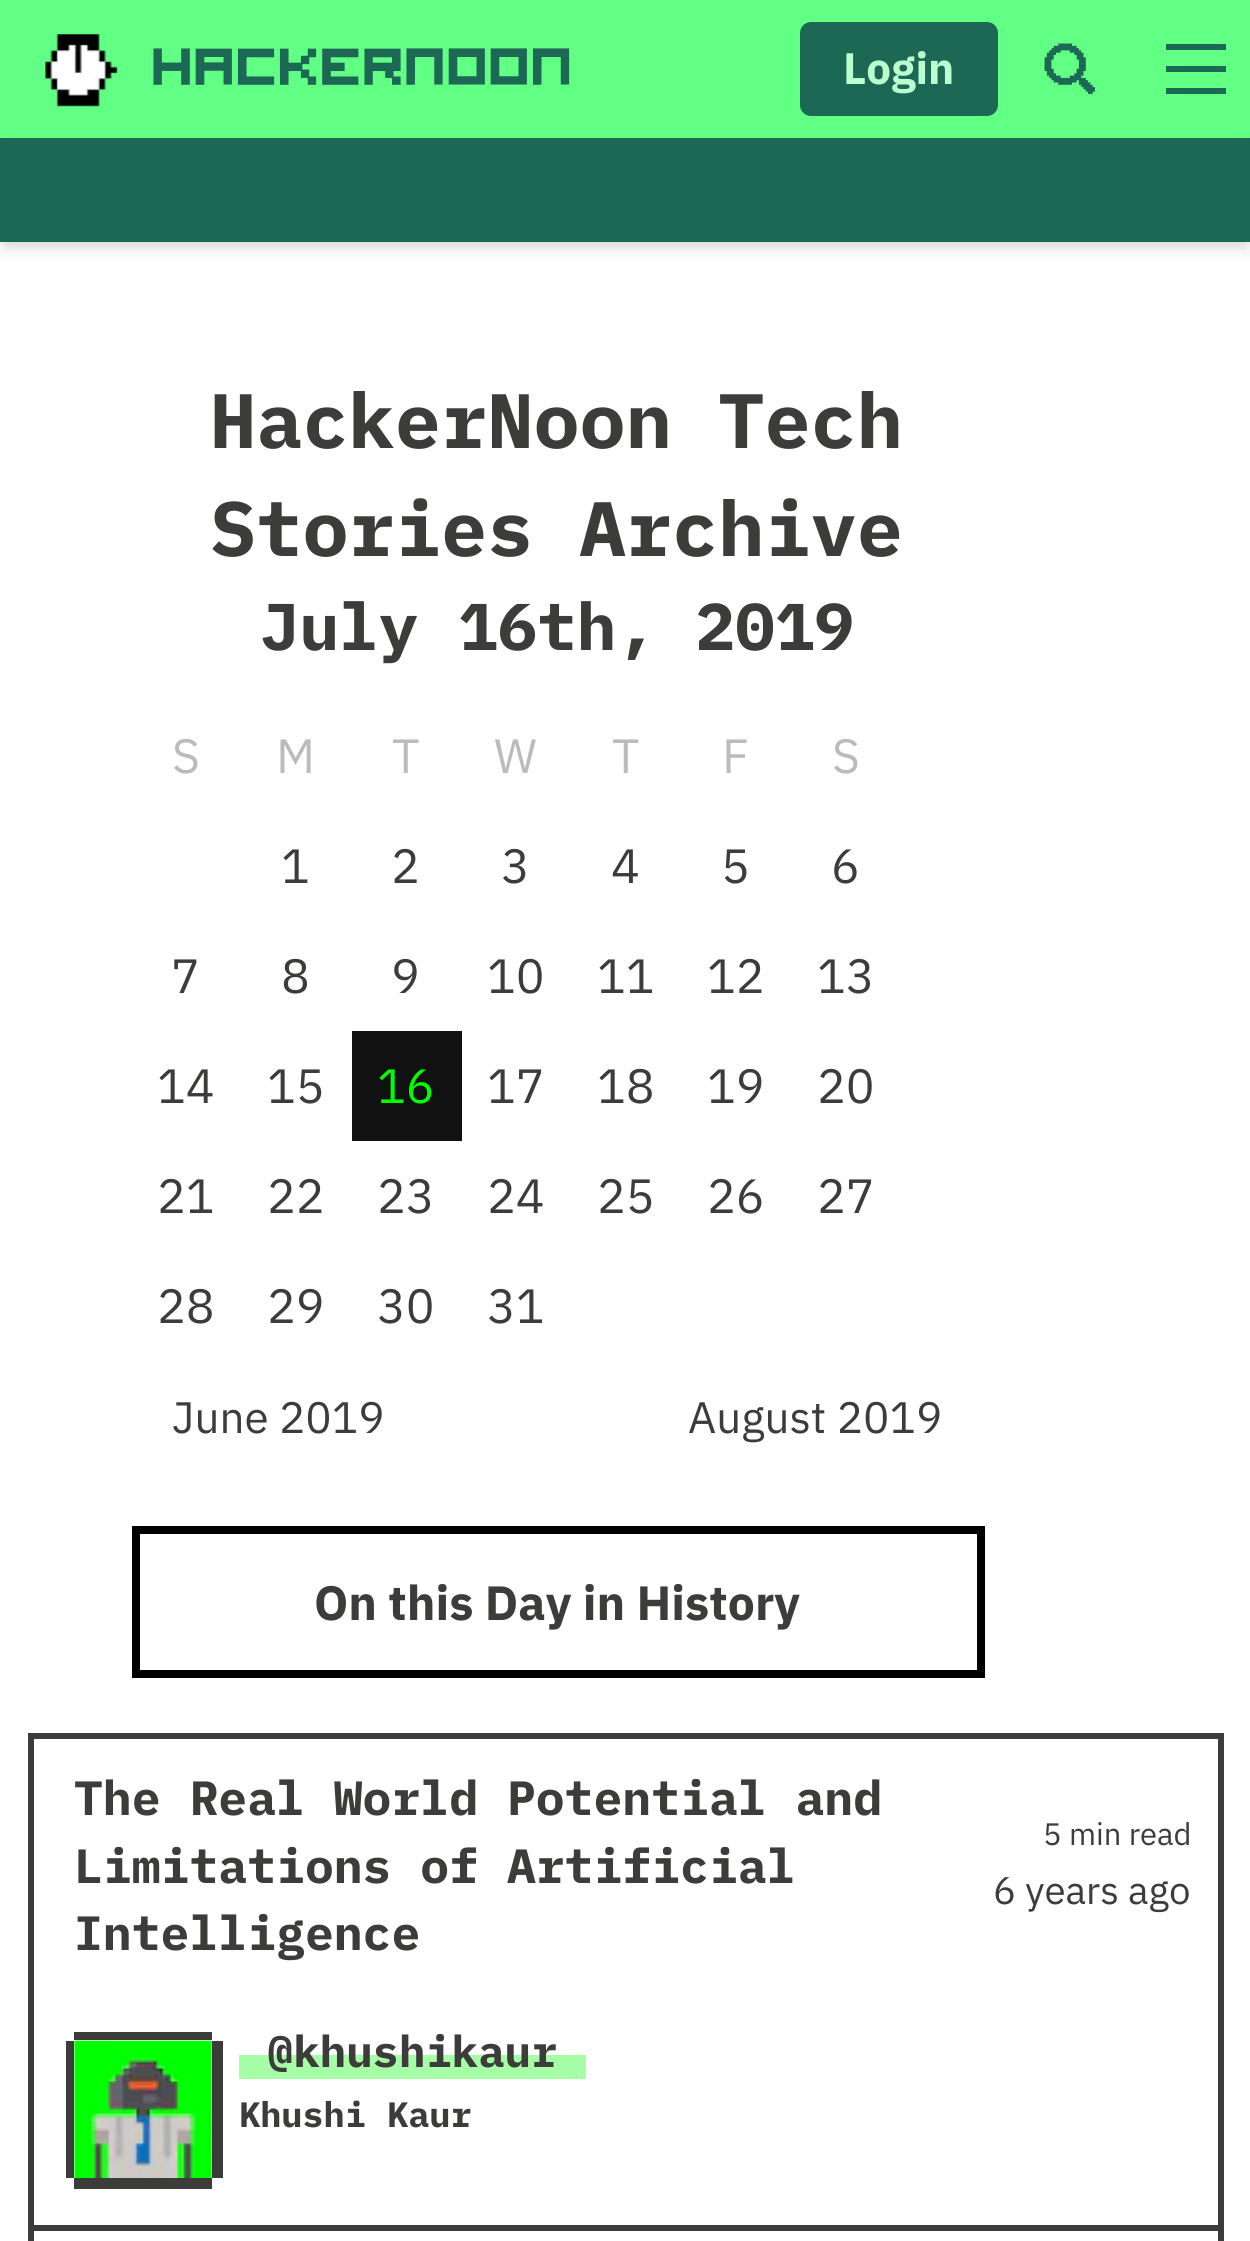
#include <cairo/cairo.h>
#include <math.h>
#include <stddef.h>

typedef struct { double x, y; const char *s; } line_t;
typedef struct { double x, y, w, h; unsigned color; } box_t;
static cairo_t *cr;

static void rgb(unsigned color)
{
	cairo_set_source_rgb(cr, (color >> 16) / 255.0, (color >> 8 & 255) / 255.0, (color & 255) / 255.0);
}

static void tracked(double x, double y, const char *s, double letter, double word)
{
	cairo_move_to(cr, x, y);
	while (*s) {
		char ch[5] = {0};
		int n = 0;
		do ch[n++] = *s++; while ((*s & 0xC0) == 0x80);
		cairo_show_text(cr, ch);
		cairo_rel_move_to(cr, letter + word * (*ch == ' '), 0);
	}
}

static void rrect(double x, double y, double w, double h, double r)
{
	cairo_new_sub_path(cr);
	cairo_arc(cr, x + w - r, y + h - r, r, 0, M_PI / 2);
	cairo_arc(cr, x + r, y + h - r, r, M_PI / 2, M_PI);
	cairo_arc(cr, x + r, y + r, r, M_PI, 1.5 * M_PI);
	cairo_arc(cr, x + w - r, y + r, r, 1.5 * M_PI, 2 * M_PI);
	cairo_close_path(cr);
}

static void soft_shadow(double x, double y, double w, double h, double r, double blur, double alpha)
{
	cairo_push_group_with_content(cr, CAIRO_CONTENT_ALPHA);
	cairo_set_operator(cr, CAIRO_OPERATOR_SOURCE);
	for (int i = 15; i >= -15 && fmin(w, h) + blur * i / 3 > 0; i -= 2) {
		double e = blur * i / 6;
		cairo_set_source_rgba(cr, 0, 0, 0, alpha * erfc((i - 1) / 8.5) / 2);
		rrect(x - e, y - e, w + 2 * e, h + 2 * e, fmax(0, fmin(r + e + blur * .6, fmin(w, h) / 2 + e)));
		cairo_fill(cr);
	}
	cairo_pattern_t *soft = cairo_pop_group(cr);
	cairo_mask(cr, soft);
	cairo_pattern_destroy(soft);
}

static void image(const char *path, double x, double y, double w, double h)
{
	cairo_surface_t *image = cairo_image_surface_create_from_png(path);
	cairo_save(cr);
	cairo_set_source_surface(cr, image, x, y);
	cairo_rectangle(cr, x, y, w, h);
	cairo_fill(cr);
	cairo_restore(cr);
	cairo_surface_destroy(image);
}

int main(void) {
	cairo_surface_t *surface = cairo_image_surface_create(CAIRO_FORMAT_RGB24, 1250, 2241);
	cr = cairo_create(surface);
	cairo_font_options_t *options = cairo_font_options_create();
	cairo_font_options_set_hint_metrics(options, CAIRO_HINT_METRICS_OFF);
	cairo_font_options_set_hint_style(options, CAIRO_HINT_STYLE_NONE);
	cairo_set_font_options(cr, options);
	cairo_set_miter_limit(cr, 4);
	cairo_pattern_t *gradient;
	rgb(0xffffff);
	cairo_paint(cr);
	rgb(0x61ff83);
	cairo_rectangle(cr, 0, 0, 1250, 138);
	cairo_fill(cr);
	image("img/1.png", 45, 34, 73, 73);
	rgb(0x1d6854);
	rrect(800, 22, 198, 94, 11);
	cairo_fill(cr);
	image("img/2.png", 1044, 43, 51, 51);
	cairo_new_path(cr);
	cairo_move_to(cr, 1166, 66);
	cairo_line_to(cr, 1226, 66);
	cairo_line_to(cr, 1226, 72);
	cairo_line_to(cr, 1166, 72);
	cairo_close_path(cr);
	cairo_move_to(cr, 1166, 88);
	cairo_line_to(cr, 1226, 88);
	cairo_line_to(cr, 1226, 94);
	cairo_line_to(cr, 1166, 94);
	cairo_close_path(cr);
	cairo_move_to(cr, 1166, 44);
	cairo_line_to(cr, 1226, 44);
	cairo_line_to(cr, 1226, 50);
	cairo_line_to(cr, 1166, 50);
	cairo_close_path(cr);
	cairo_fill(cr);
	rgb(0x000000);
	soft_shadow(6, 149, 1240, 93, 0, 5.5, 0.1);
	soft_shadow(3, 151, 1246, 99, 0, 8, 0.1);
	rgb(0x1d6854);
	cairo_rectangle(cr, 0, 138, 1250, 104);
	cairo_fill(cr);
	rgb(0x111111);
	cairo_rectangle(cr, 352, 1031, 110, 110);
	cairo_fill(cr);
	cairo_rectangle(cr, 136, 1530, 845, 144);
	rgb(0x000000);
	cairo_set_line_width(cr, 8);
	cairo_stroke(cr);
	cairo_rectangle(cr, 31, 1736, 1190, 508);
	rgb(0x3c3c3b);
	cairo_set_line_width(cr, 6);
	cairo_stroke(cr);
	{
		static const box_t items[] = {
			{33, 2225, 1185, 6, 0x3c3c3b},
			{66, 2041, 8, 137, 0x3c3c3b},
			{212, 2041, 11, 137, 0x3c3c3b},
		};
		for (size_t i = 0; i < sizeof items / sizeof *items; i++) {
			rgb(items[i].color);
			cairo_rectangle(cr, items[i].x, items[i].y, items[i].w, items[i].h);
			cairo_fill(cr);
		}
	}
	cairo_new_path(cr);
	cairo_move_to(cr, 74, 2032);
	cairo_line_to(cr, 74, 2170);
	cairo_line_to(cr, 74, 2040);
	cairo_line_to(cr, 212, 2040);
	cairo_line_to(cr, 212, 2170);
	cairo_line_to(cr, 212, 2032);
	cairo_close_path(cr);
	cairo_fill(cr);
	cairo_new_path(cr);
	cairo_move_to(cr, 74, 2052);
	cairo_line_to(cr, 74, 2189);
	cairo_line_to(cr, 212, 2189);
	cairo_line_to(cr, 212, 2052);
	cairo_line_to(cr, 212, 2178);
	cairo_line_to(cr, 74, 2178);
	cairo_close_path(cr);
	cairo_fill(cr);
	image("img/3.png", 74, 2040, 138, 138);
	gradient = cairo_pattern_create_linear(413, 2024, 413, 2134);
	cairo_pattern_add_color_stop_rgba(gradient, 0, 1, 1, 1, 1);
	cairo_pattern_add_color_stop_rgba(gradient, 0.28, 1, 1, 1, 1);
	cairo_pattern_add_color_stop_rgba(gradient, 0.28, 0.651, 1, 0.651, 1);
	cairo_pattern_add_color_stop_rgba(gradient, 1, 0.651, 1, 0.651, 1);
	cairo_set_source(cr, gradient);
	cairo_pattern_destroy(gradient);
	cairo_rectangle(cr, 239, 2055, 347, 24);
	cairo_fill(cr);
	cairo_select_font_face(cr, "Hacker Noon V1", CAIRO_FONT_SLANT_NORMAL, CAIRO_FONT_WEIGHT_BOLD);
	cairo_set_font_size(cr, 49.5);
	rgb(0x1d6854);
	tracked(151, 80, "Hackernoon", 2.5, 0);
	cairo_select_font_face(cr, "IBM Plex Sans", CAIRO_FONT_SLANT_NORMAL, CAIRO_FONT_WEIGHT_BOLD);
	cairo_set_font_size(cr, 44);
	rgb(0xb9ffd0);
	cairo_move_to(cr, 843, 84);
	cairo_show_text(cr, "Login");
	cairo_select_font_face(cr, "IBM Plex Mono", CAIRO_FONT_SLANT_NORMAL, CAIRO_FONT_WEIGHT_BOLD);
	cairo_set_font_size(cr, 77);
	rgb(0x3c3c3b);
	cairo_move_to(cr, 210, 448);
	cairo_show_text(cr, "HackerNoon Tech");
	cairo_move_to(cr, 210, 556);
	cairo_show_text(cr, "Stories Archive");
	cairo_set_font_size(cr, 66);
	cairo_move_to(cr, 260, 650);
	cairo_show_text(cr, "July 16th, 2019");
	cairo_select_font_face(cr, "IBM Plex Sans", CAIRO_FONT_SLANT_NORMAL, CAIRO_FONT_WEIGHT_NORMAL);
	cairo_set_font_size(cr, 48.1);
	rgb(0xbbbbbb);
	{
		static const line_t items[] = {
			{172, 773, "S"},
			{276, 773, "M"},
			{392, 773, "T"},
			{494, 773, "W"},
			{612, 773, "T"},
			{722, 773, "F"},
			{832, 773, "S"},
		};
		for (size_t i = 0; i < sizeof items / sizeof *items; i++) {
			cairo_move_to(cr, items[i].x, items[i].y);
			cairo_show_text(cr, items[i].s);
		}
	}
	rgb(0x3c3c3b);
	{
		static const line_t items[] = {
			{281, 883, "1"},
			{391, 883, "2"},
			{501, 883, "3"},
			{611, 883, "4"},
			{721, 883, "5"},
			{831, 883, "6"},
			{171, 993, "7"},
			{281, 993, "8"},
			{391, 993, "9"},
			{487, 993, "10"},
			{597, 993, "11"},
			{707, 993, "12"},
			{817, 993, "13"},
			{157, 1103, "14"},
			{267, 1103, "15"},
		};
		for (size_t i = 0; i < sizeof items / sizeof *items; i++) {
			cairo_move_to(cr, items[i].x, items[i].y);
			cairo_show_text(cr, items[i].s);
		}
	}
	rgb(0x00ff00);
	cairo_move_to(cr, 377, 1103);
	cairo_show_text(cr, "16");
	rgb(0x3c3c3b);
	{
		static const line_t items[] = {
			{487, 1103, "17"},
			{597, 1103, "18"},
			{707, 1103, "19"},
			{817, 1103, "20"},
			{157, 1213, "21"},
			{267, 1213, "22"},
			{377, 1213, "23"},
			{487, 1213, "24"},
			{597, 1213, "25"},
			{707, 1213, "26"},
			{817, 1213, "27"},
			{157, 1323, "28"},
			{267, 1323, "29"},
			{377, 1323, "30"},
			{487, 1323, "31"},
		};
		for (size_t i = 0; i < sizeof items / sizeof *items; i++) {
			cairo_move_to(cr, items[i].x, items[i].y);
			cairo_show_text(cr, items[i].s);
		}
	}
	cairo_set_font_size(cr, 44);
	cairo_move_to(cr, 172, 1433);
	cairo_show_text(cr, "June 2019");
	cairo_move_to(cr, 688, 1433);
	cairo_show_text(cr, "August 2019");
	cairo_select_font_face(cr, "IBM Plex Sans", CAIRO_FONT_SLANT_NORMAL, CAIRO_FONT_WEIGHT_BOLD);
	cairo_set_font_size(cr, 48.1);
	cairo_move_to(cr, 314, 1620);
	cairo_show_text(cr, "On this Day in History");
	cairo_select_font_face(cr, "IBM Plex Mono", CAIRO_FONT_SLANT_NORMAL, CAIRO_FONT_WEIGHT_BOLD);
	{
		static const line_t items[] = {
			{74, 1815, "The Real World Potential and"},
			{74, 1883, "Limitations of Artificial"},
			{74, 1950, "Intelligence"},
		};
		for (size_t i = 0; i < sizeof items / sizeof *items; i++) {
			cairo_move_to(cr, items[i].x, items[i].y);
			cairo_show_text(cr, items[i].s);
		}
	}
	cairo_select_font_face(cr, "IBM Plex Sans", CAIRO_FONT_SLANT_NORMAL, CAIRO_FONT_WEIGHT_NORMAL);
	cairo_set_font_size(cr, 31);
	cairo_move_to(cr, 1043, 1845);
	cairo_show_text(cr, "5 min read");
	cairo_set_font_size(cr, 38.5);
	cairo_move_to(cr, 993, 1904);
	cairo_show_text(cr, "6 years ago");
	cairo_select_font_face(cr, "IBM Plex Mono", CAIRO_FONT_SLANT_NORMAL, CAIRO_FONT_WEIGHT_BOLD);
	cairo_set_font_size(cr, 44);
	cairo_move_to(cr, 267, 2067);
	cairo_show_text(cr, "@khushikaur");
	cairo_set_font_size(cr, 35.25);
	cairo_move_to(cr, 239, 2127);
	cairo_show_text(cr, "Khushi Kaur");
	cairo_surface_write_to_png(surface, "page.png");
	cairo_font_options_destroy(options);
	cairo_destroy(cr);
	cairo_surface_destroy(surface);
	return 0;
}
